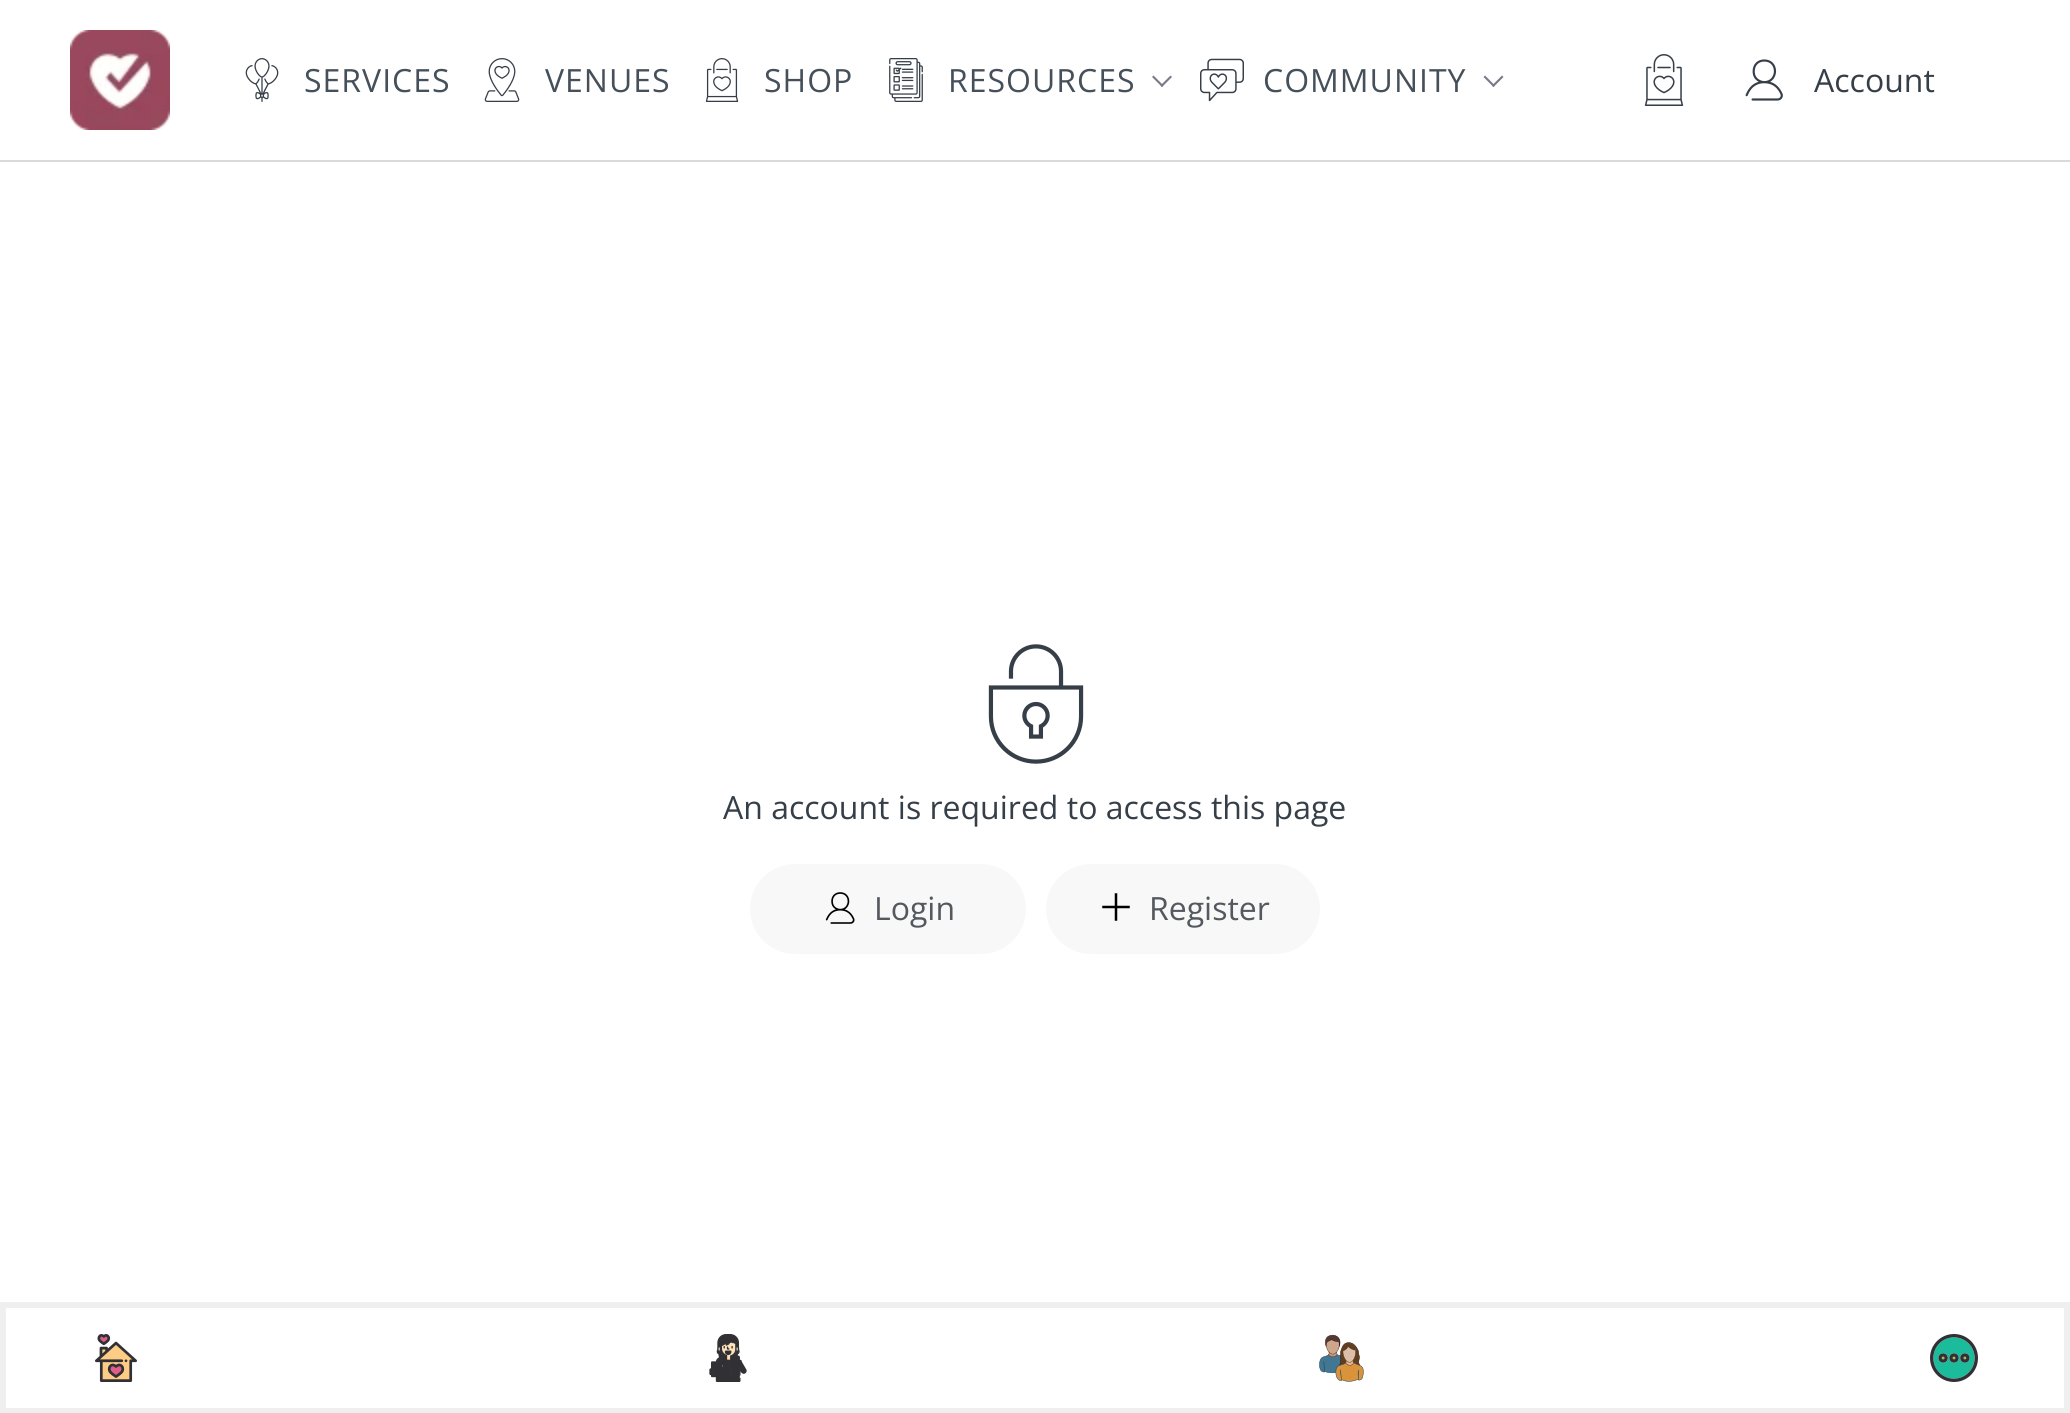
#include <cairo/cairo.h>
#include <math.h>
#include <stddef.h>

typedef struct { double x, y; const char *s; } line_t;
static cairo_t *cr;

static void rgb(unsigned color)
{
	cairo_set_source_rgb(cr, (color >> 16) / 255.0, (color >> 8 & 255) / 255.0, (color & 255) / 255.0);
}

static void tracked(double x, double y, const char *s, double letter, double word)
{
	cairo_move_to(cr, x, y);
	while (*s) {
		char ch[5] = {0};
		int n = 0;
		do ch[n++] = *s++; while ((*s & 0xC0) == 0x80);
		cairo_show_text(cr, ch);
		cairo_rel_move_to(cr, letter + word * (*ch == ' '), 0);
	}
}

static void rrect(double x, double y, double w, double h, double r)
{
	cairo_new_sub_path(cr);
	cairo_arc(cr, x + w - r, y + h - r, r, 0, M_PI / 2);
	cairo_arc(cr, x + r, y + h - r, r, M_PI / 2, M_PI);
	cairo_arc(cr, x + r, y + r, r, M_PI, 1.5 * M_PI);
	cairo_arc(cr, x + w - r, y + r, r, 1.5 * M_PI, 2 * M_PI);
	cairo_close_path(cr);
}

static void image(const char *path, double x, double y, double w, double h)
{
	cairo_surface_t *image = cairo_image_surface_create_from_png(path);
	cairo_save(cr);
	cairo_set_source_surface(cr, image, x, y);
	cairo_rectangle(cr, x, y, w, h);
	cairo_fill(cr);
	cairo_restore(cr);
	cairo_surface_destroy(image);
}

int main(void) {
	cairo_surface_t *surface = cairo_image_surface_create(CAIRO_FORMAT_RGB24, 2070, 1413);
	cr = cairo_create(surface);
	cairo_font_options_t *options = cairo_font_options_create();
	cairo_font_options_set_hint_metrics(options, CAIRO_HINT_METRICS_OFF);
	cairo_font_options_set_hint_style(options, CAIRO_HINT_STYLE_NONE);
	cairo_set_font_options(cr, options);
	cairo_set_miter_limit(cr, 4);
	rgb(0xffffff);
	cairo_paint(cr);
	rgb(0xdadada);
	cairo_rectangle(cr, 0, 160, 2070, 2);
	cairo_fill(cr);
	image("img/1.png", 70, 30, 100, 100);
	image("img/2.png", 245, 58, 34, 44);
	image("img/3.png", 484, 58, 36, 44);
	image("img/4.png", 705, 58, 34, 44);
	image("img/5.png", 889, 58, 34, 44);
	rgb(0x797a88);
	cairo_new_path(cr);
	cairo_move_to(cr, 1170.5, 75.5);
	cairo_line_to(cr, 1172, 77);
	cairo_line_to(cr, 1162, 87);
	cairo_line_to(cr, 1160.5, 85.5);
	cairo_close_path(cr);
	cairo_fill(cr);
	cairo_new_path(cr);
	cairo_move_to(cr, 1153.5, 75.5);
	cairo_line_to(cr, 1163.5, 85.5);
	cairo_line_to(cr, 1162, 87);
	cairo_line_to(cr, 1152, 77);
	cairo_close_path(cr);
	cairo_fill(cr);
	image("img/6.png", 1200, 58, 44, 44);
	cairo_new_path(cr);
	cairo_move_to(cr, 1502, 75.5);
	cairo_line_to(cr, 1503.5, 77);
	cairo_line_to(cr, 1493.5, 87);
	cairo_line_to(cr, 1492, 85.5);
	cairo_close_path(cr);
	cairo_fill(cr);
	cairo_new_path(cr);
	cairo_move_to(cr, 1485, 75.5);
	cairo_line_to(cr, 1495, 85.5);
	cairo_line_to(cr, 1493.5, 87);
	cairo_line_to(cr, 1483.5, 77);
	cairo_close_path(cr);
	cairo_fill(cr);
	image("img/7.png", 1644, 54, 40, 52);
	image("img/8.png", 1745, 59, 38, 42);
	cairo_rectangle(cr, 3, 1305, 2064, 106);
	rgb(0xefefef);
	cairo_set_line_width(cr, 6);
	cairo_stroke(cr);
	image("img/9.png", 95, 1334, 42, 48);
	image("img/10.png", 709, 1334, 38, 48);
	image("img/11.png", 1319, 1334, 45, 48);
	image("img/12.png", 1930, 1334, 48, 48);
	image("img/13.png", 988, 644, 96, 120);
	rgb(0xf8f8f8);
	rrect(750, 864, 276, 90, 45);
	cairo_fill(cr);
	image("img/14.png", 825, 892, 30, 32);
	rrect(1046, 864, 274, 90, 45);
	cairo_fill(cr);
	image("img/15.png", 1102, 893, 28, 28);
	cairo_select_font_face(cr, "Open Sans", CAIRO_FONT_SLANT_NORMAL, CAIRO_FONT_WEIGHT_NORMAL);
	cairo_set_font_size(cr, 32);
	rgb(0x45505b);
	{
		static const line_t items[] = {
			{304, 92, "SERVICES"},
			{545, 92, "VENUES"},
			{764, 92, "SHOP"},
			{948, 92, "RESOURCES"},
			{1263, 92, "COMMUNITY"},
		};
		for (size_t i = 0; i < sizeof items / sizeof *items; i++) {
			tracked(items[i].x, items[i].y, items[i].s, 1, 0);
		}
	}
	rgb(0x363f48);
	cairo_move_to(cr, 1814, 92);
	cairo_show_text(cr, "Account");
	cairo_move_to(cr, 723, 819);
	cairo_show_text(cr, "An account is required to access this page");
	rgb(0x54595f);
	cairo_move_to(cr, 874, 920);
	cairo_show_text(cr, "Login");
	cairo_move_to(cr, 1149, 920);
	cairo_show_text(cr, "Register");
	cairo_surface_write_to_png(surface, "page.png");
	cairo_font_options_destroy(options);
	cairo_destroy(cr);
	cairo_surface_destroy(surface);
	return 0;
}
